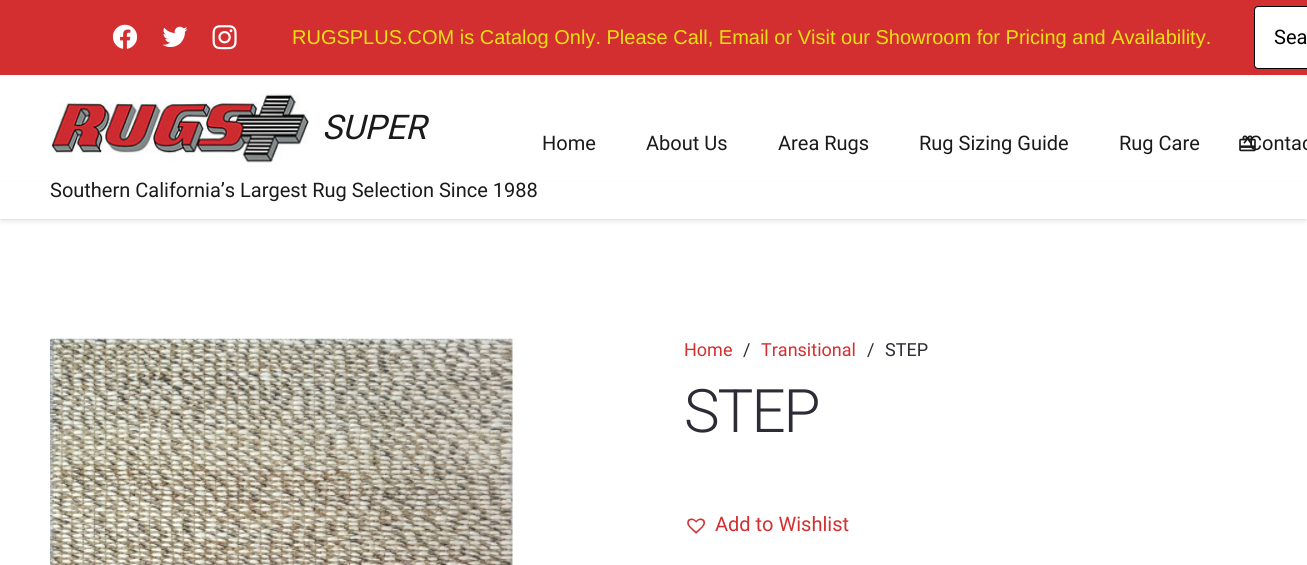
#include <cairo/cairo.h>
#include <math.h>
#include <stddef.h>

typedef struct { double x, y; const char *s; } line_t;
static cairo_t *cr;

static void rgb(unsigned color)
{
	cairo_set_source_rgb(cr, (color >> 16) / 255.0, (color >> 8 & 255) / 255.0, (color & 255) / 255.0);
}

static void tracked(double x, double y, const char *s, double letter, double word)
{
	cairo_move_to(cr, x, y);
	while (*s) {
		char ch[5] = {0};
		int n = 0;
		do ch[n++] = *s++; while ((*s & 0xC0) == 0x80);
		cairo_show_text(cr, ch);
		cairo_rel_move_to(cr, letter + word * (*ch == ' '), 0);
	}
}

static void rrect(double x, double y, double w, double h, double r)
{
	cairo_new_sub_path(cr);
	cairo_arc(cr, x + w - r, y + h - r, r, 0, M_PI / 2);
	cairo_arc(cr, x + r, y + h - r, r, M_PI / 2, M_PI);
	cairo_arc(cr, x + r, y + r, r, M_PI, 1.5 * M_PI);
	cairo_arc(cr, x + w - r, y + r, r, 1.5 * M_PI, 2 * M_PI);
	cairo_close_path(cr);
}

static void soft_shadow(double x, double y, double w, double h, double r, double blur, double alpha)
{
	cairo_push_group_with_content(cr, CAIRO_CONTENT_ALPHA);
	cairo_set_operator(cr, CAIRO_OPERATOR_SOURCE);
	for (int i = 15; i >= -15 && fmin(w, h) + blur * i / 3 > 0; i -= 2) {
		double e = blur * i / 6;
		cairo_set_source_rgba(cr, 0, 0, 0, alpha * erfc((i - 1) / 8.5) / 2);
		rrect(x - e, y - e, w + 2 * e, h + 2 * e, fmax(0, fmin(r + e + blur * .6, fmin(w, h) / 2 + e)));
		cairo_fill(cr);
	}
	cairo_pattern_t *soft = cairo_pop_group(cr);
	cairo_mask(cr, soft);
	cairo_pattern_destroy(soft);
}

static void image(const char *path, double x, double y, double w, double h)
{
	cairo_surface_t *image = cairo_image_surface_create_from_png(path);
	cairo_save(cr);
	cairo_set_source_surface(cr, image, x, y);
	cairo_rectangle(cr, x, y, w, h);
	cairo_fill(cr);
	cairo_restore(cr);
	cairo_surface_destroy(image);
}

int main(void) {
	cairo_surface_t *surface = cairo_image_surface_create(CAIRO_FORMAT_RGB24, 1307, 565);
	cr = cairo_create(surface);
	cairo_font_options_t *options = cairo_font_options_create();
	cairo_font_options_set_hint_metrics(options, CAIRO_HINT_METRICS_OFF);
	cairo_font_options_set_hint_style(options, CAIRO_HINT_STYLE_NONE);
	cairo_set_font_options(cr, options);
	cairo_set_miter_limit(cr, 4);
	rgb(0xffffff);
	cairo_paint(cr);
	rgb(0xd42f30);
	cairo_rectangle(cr, 0, 0, 1307, 75);
	cairo_fill(cr);
	image("img/1.png", 112, 24, 26, 25);
	image("img/2.png", 162, 26, 26, 21);
	image("img/3.png", 212, 25, 25, 25);
	rgb(0xffffff);
	rrect(1254.5, 6.5, 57, 62, 3.5);
	cairo_fill_preserve(cr);
	rgb(0x000000);
	cairo_set_line_width(cr, 1);
	cairo_stroke(cr);
	image("img/4.png", 50, 94, 259, 69);
	image("img/5.png", 1239, 135, 17, 17);
	rgb(0x000000);
	soft_shadow(1, 185, 1305, 35, 0, 0.5, 0.05);
	soft_shadow(1, 186, 1305, 35, 0, 3, 0.1);
	rgb(0xffffff);
	cairo_rectangle(cr, 0, 182, 1307, 37);
	cairo_fill(cr);
	image("img/6.png", 50, 338, 463, 227);
	image("img/7.png", 687, 518, 18, 16);
	cairo_select_font_face(cr, "Liberation Sans", CAIRO_FONT_SLANT_NORMAL, CAIRO_FONT_WEIGHT_NORMAL);
	cairo_set_font_size(cr, 20);
	rgb(0xe8e110);
	cairo_move_to(cr, 292, 44);
	cairo_show_text(cr, "RUGSPLUS.COM is Catalog Only. Please Call, Email or Visit our Showroom for Pricing and Availability.");
	cairo_select_font_face(cr, "Roboto", CAIRO_FONT_SLANT_NORMAL, CAIRO_FONT_WEIGHT_NORMAL);
	rgb(0x000000);
	cairo_move_to(cr, 1274, 44);
	cairo_show_text(cr, "Sea");
	cairo_select_font_face(cr, "Roboto", CAIRO_FONT_SLANT_ITALIC, CAIRO_FONT_WEIGHT_NORMAL);
	cairo_set_font_size(cr, 34);
	rgb(0x1a1a1a);
	cairo_move_to(cr, 322, 139);
	cairo_show_text(cr, "SUPER");
	cairo_select_font_face(cr, "Roboto", CAIRO_FONT_SLANT_NORMAL, CAIRO_FONT_WEIGHT_NORMAL);
	cairo_set_font_size(cr, 20);
	{
		static const line_t items[] = {
			{542, 150, "Home"},
			{646, 150, "About Us"},
			{778, 150, "Area Rugs"},
			{919, 150, "Rug Sizing Guide"},
			{1119, 150, "Rug Care"},
			{1249, 150, "Contac"},
			{50, 197, "Southern California’s Largest Rug Selection Since 1988"},
		};
		for (size_t i = 0; i < sizeof items / sizeof *items; i++) {
			cairo_move_to(cr, items[i].x, items[i].y);
			cairo_show_text(cr, items[i].s);
		}
	}
	cairo_set_font_size(cr, 18);
	rgb(0xd42f30);
	cairo_move_to(cr, 684, 356);
	cairo_show_text(cr, "Home");
	rgb(0x2b2c36);
	cairo_move_to(cr, 743, 356);
	cairo_show_text(cr, "/");
	rgb(0xd42f30);
	cairo_move_to(cr, 761, 356);
	cairo_show_text(cr, "Transitional");
	rgb(0x2b2c36);
	cairo_move_to(cr, 867, 356);
	cairo_show_text(cr, "/");
	cairo_move_to(cr, 885, 356);
	cairo_show_text(cr, "STEP");
	cairo_select_font_face(cr, "Roboto Light", CAIRO_FONT_SLANT_NORMAL, CAIRO_FONT_WEIGHT_NORMAL);
	cairo_set_font_size(cr, 60);
	tracked(684, 432, "STEP", -2, 0);
	cairo_select_font_face(cr, "Roboto", CAIRO_FONT_SLANT_NORMAL, CAIRO_FONT_WEIGHT_NORMAL);
	cairo_set_font_size(cr, 20);
	rgb(0xd42f30);
	cairo_move_to(cr, 715, 531);
	cairo_show_text(cr, "Add to Wishlist");
	cairo_surface_write_to_png(surface, "page.png");
	cairo_font_options_destroy(options);
	cairo_destroy(cr);
	cairo_surface_destroy(surface);
	return 0;
}
